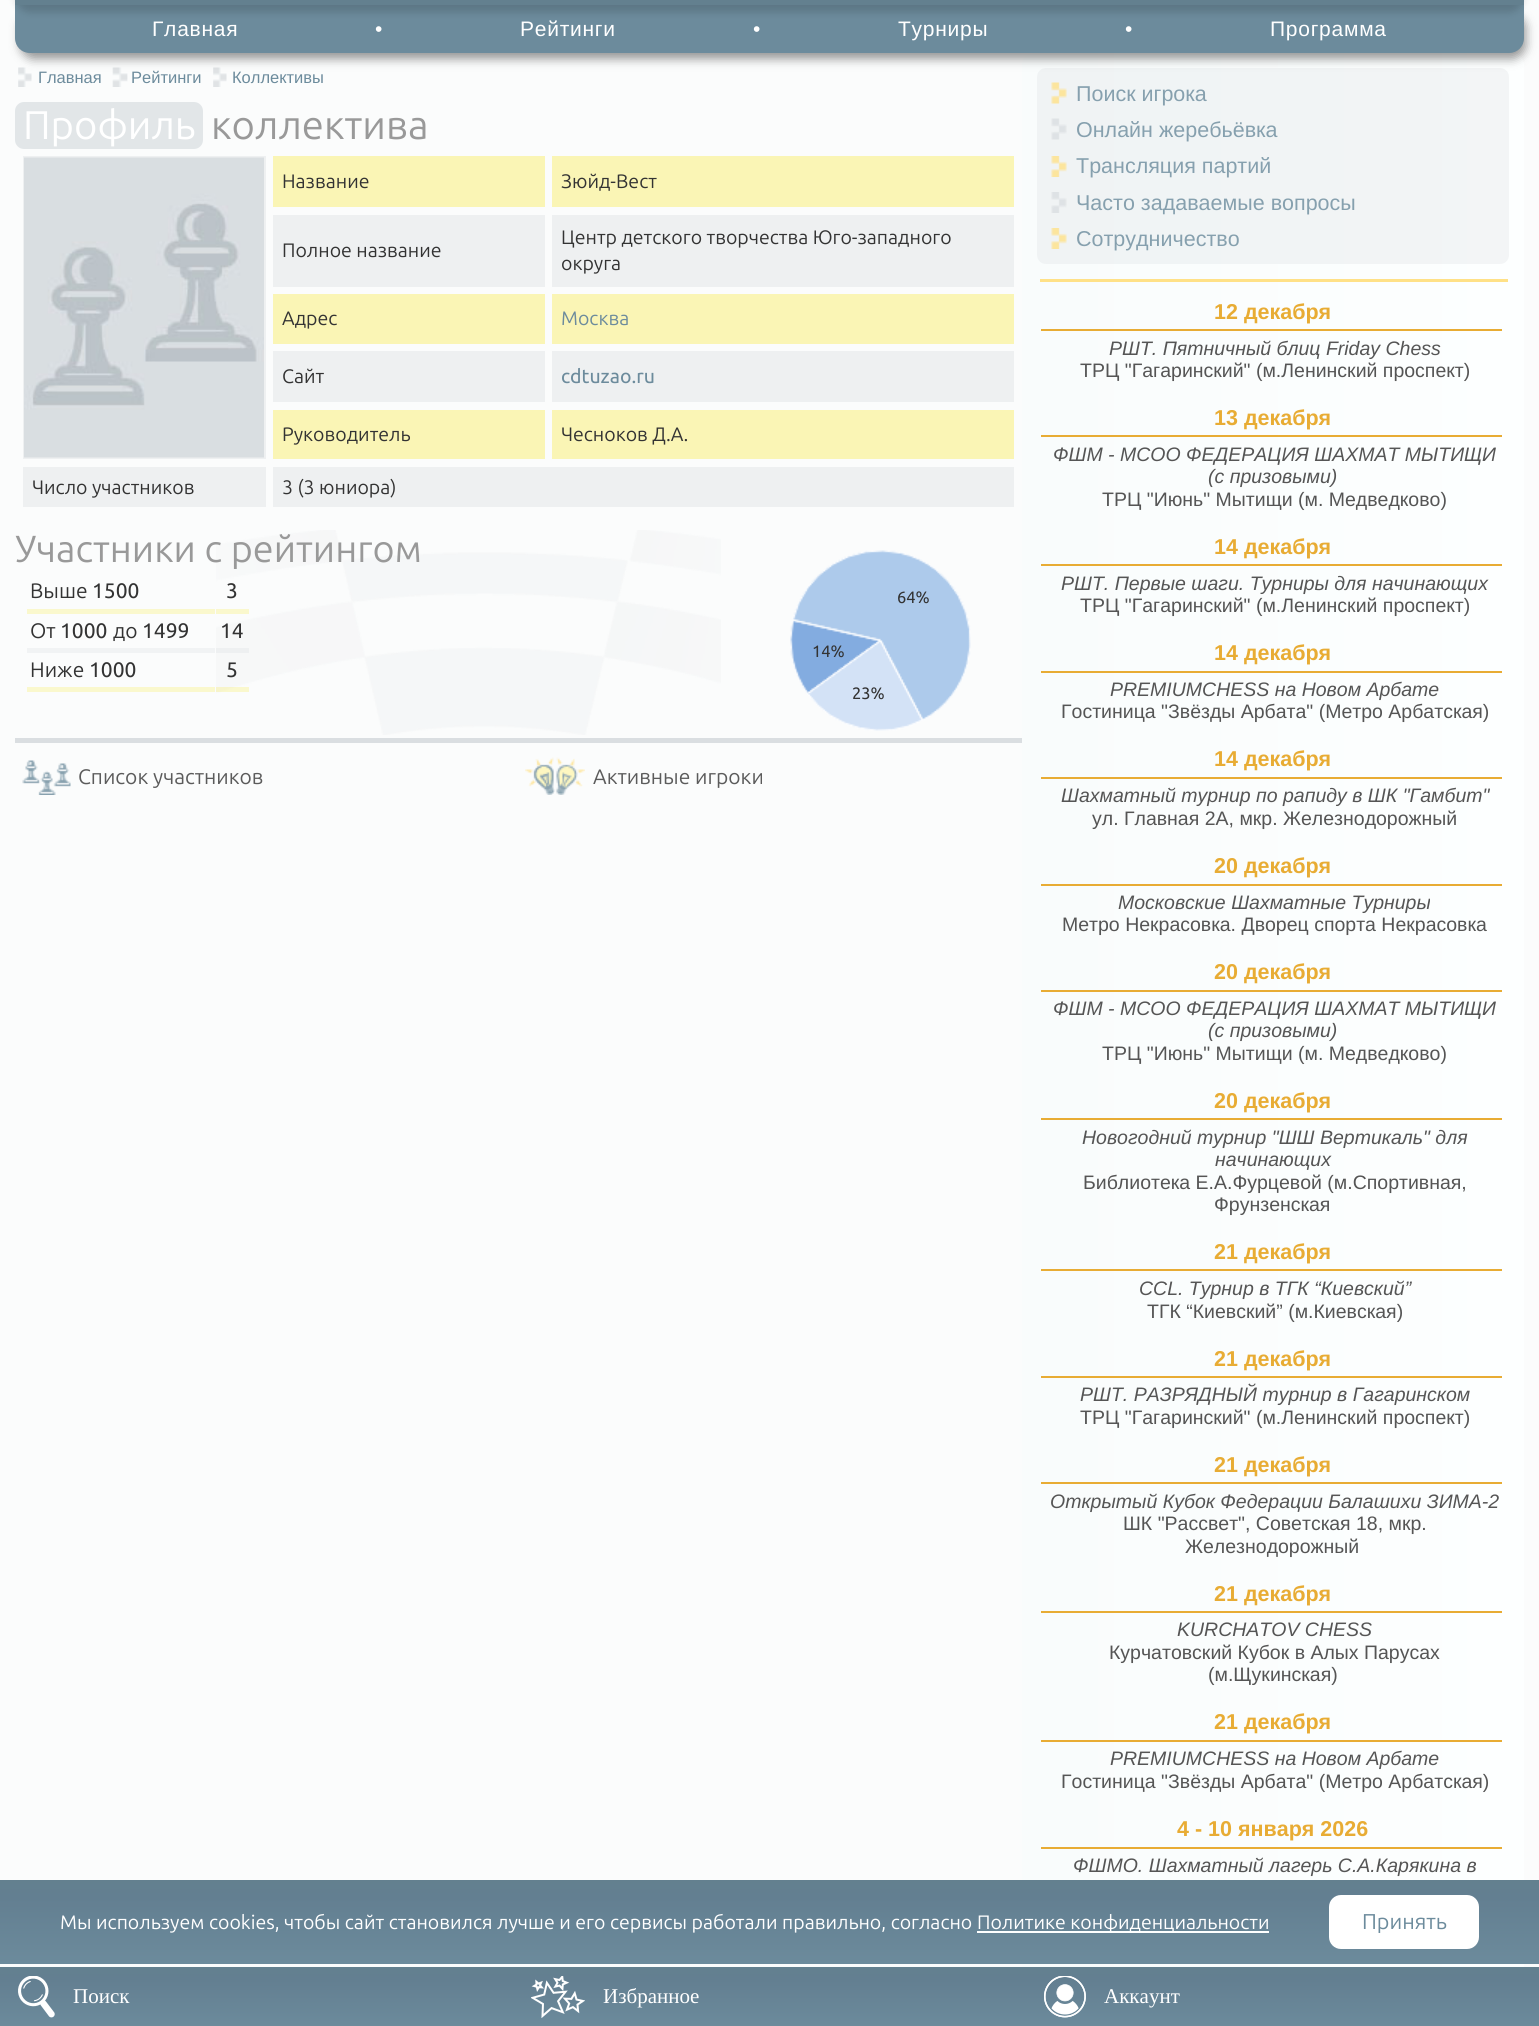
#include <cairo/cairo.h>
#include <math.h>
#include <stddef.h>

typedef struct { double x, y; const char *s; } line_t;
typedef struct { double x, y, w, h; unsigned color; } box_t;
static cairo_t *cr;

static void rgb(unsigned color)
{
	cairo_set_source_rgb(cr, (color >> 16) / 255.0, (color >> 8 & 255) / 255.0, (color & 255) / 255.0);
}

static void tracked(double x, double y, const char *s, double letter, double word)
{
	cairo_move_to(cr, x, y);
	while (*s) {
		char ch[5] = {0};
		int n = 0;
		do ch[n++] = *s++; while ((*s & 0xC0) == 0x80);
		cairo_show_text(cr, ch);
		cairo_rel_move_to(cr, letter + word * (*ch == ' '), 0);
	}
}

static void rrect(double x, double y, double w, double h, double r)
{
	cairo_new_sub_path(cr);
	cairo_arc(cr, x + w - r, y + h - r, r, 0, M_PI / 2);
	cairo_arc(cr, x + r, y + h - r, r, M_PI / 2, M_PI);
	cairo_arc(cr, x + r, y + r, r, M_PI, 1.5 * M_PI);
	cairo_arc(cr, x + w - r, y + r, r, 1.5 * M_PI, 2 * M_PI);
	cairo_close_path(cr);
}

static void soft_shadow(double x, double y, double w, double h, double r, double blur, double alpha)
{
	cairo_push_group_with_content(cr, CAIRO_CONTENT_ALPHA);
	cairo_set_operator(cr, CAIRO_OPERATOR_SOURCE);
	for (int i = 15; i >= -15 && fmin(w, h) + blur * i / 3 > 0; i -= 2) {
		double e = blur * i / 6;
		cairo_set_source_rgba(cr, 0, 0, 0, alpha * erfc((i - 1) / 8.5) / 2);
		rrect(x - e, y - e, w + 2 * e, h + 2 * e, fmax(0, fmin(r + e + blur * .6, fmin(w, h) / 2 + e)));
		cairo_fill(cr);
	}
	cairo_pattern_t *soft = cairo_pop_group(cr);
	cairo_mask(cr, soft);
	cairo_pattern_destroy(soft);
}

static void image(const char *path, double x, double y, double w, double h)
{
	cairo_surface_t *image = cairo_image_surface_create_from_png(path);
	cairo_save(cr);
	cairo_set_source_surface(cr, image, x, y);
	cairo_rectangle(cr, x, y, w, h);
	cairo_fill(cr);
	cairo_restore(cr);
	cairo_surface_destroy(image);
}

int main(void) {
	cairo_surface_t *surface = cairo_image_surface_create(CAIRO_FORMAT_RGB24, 1539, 2026);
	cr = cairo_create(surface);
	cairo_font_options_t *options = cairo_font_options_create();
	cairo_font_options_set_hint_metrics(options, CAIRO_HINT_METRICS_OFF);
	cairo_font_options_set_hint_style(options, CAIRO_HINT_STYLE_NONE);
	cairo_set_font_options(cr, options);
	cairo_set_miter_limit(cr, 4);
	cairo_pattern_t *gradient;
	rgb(0xfbfcfc);
	cairo_paint(cr);
	image("img/1.png", 18, 67, 14, 20);
	image("img/2.png", 112, 67, 16, 20);
	image("img/1.png", 213, 67, 14, 20);
	gradient = cairo_pattern_create_linear(1022, 1119, 1524, 1119);
	cairo_pattern_add_color_stop_rgba(gradient, 0, 0.976, 0.988, 0.988, 1);
	cairo_pattern_add_color_stop_rgba(gradient, 1, 0.992, 1, 1, 1);
	cairo_set_source(cr, gradient);
	cairo_pattern_destroy(gradient);
	rrect(1022, 53, 502, 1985, 12);
	cairo_fill(cr);
	cairo_set_source_rgba(cr, 0.855, 0.871, 0.882, 0.3);
	rrect(1037, 68, 472, 196, 9);
	cairo_fill(cr);
	rgb(0x000000);
	soft_shadow(20, 14, 1506, 45, 14, 5, 0.4);
	rgb(0x6c8b9c);
	cairo_new_path(cr);
	cairo_move_to(cr, 15, 5);
	cairo_line_to(cr, 1524, 5);
	cairo_line_to(cr, 1524, 38);
	cairo_curve_to(cr, 1524, 46.5, 1517.5, 53, 1509, 53);
	cairo_line_to(cr, 30, 53);
	cairo_curve_to(cr, 21.5, 53, 15, 46.5, 15, 38);
	cairo_close_path(cr);
	cairo_fill(cr);
	rgb(0x000000);
	soft_shadow(15, -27, 1509, 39, 15, 4, 0.15);
	gradient = cairo_pattern_create_linear(770, -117, 770, 4.5);
	cairo_pattern_add_color_stop_rgba(gradient, 0, 0.424, 0.545, 0.612, 1);
	cairo_pattern_add_color_stop_rgba(gradient, 0.78, 0.388, 0.498, 0.569, 1);
	cairo_pattern_add_color_stop_rgba(gradient, 1, 0.388, 0.502, 0.561, 1);
	cairo_set_source(cr, gradient);
	cairo_pattern_destroy(gradient);
	cairo_rectangle(cr, 15, 0, 1509, 5);
	cairo_fill(cr);
	rgb(0xe2e6e8);
	rrect(15, 102, 188, 47, 9);
	cairo_fill(cr);
	cairo_rectangle(cr, 24, 157, 241, 301);
	rgb(0xeef0f1);
	cairo_stroke(cr);
	image("img/3.png", 24, 157, 240, 301);
	{
		static const box_t items[] = {
			{273, 156, 272, 51, 0xfaf5b5},
			{552, 156, 462, 51, 0xfaf5b5},
			{273, 215, 272, 72, 0xeef0f1},
			{552, 215, 462, 72, 0xeef0f1},
			{273, 294, 272, 50, 0xfaf5b5},
			{552, 294, 462, 50, 0xfaf5b5},
			{273, 351, 272, 51, 0xeef0f1},
			{552, 351, 462, 51, 0xeef0f1},
			{273, 410, 272, 49, 0xfaf5b5},
			{552, 410, 462, 49, 0xfaf5b5},
			{23, 467, 243, 40, 0xeef0f1},
			{273, 467, 741, 40, 0xeef0f1},
		};
		for (size_t i = 0; i < sizeof items / sizeof *items; i++) {
			rgb(items[i].color);
			cairo_rectangle(cr, items[i].x, items[i].y, items[i].w, items[i].h);
			cairo_fill(cr);
		}
	}
	image("img/4.png", 216, 530, 505, 205);
	rgb(0xfaf8cd);
	cairo_rectangle(cr, 27, 609, 188, 5);
	cairo_fill(cr);
	cairo_rectangle(cr, 216, 609, 33, 5);
	cairo_fill(cr);
	rgb(0xf1f3f4);
	cairo_rectangle(cr, 27, 648, 188, 5);
	cairo_fill(cr);
	rgb(0xeef0f1);
	cairo_rectangle(cr, 216, 648, 33, 5);
	cairo_fill(cr);
	rgb(0xfaf8cd);
	cairo_rectangle(cr, 27, 687, 188, 5);
	cairo_fill(cr);
	cairo_set_source_rgba(cr, 0.969, 0.902, 0.059, 0.2);
	cairo_rectangle(cr, 216, 687, 33, 5);
	cairo_fill(cr);
	image("img/5.png", 790, 550, 181, 181);
	rgb(0xdadee1);
	cairo_rectangle(cr, 15, 738, 1007, 5);
	cairo_fill(cr);
	image("img/6.png", 22, 760, 49, 35);
	image("img/7.png", 525, 757, 60, 38);
	image("img/8.png", 1051, 82, 16, 22);
	image("img/9.png", 1051, 118, 16, 22);
	image("img/10.png", 1051, 156, 16, 21);
	image("img/11.png", 1051, 192, 16, 21);
	image("img/10.png", 1051, 228, 16, 21);
	{
		static const box_t items[] = {
			{1040, 279, 468, 3, 0xffe187},
			{1041, 329, 461, 2, 0xe8ac34},
			{1041, 435, 461, 2, 0xe8ac34},
			{1041, 564, 461, 2, 0xe8ac34},
			{1041, 671, 461, 2, 0xe8ac34},
			{1041, 777, 461, 2, 0xe8ac34},
			{1041, 884, 461, 2, 0xe8ac34},
			{1041, 990, 461, 2, 0xe8ac34},
			{1041, 1118, 461, 2, 0xe8ac34},
			{1041, 1269, 461, 2, 0xe8ac34},
			{1041, 1376, 461, 2, 0xe8ac34},
			{1041, 1482, 461, 2, 0xe8ac34},
			{1041, 1611, 461, 2, 0xe8ac34},
			{1041, 1740, 461, 2, 0xe8ac34},
			{1041, 1847, 461, 2, 0xe8ac34},
		};
		for (size_t i = 0; i < sizeof items / sizeof *items; i++) {
			rgb(items[i].color);
			cairo_rectangle(cr, items[i].x, items[i].y, items[i].w, items[i].h);
			cairo_fill(cr);
		}
	}
	gradient = cairo_pattern_create_linear(770, 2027, 770, 1967);
	cairo_pattern_add_color_stop_rgba(gradient, 0, 0.424, 0.545, 0.612, 1);
	cairo_pattern_add_color_stop_rgba(gradient, 0.78, 0.388, 0.498, 0.569, 1);
	cairo_pattern_add_color_stop_rgba(gradient, 1, 0.388, 0.502, 0.561, 1);
	cairo_set_source(cr, gradient);
	cairo_pattern_destroy(gradient);
	cairo_rectangle(cr, 0, 1967, 1539, 59);
	cairo_fill(cr);
	image("img/12.png", 18, 1976, 37, 42);
	image("img/13.png", 531, 1976, 54, 42);
	image("img/14.png", 1044, 1976, 42, 42);
	gradient = cairo_pattern_create_linear(770, 1964, 770, 1880);
	cairo_pattern_add_color_stop_rgba(gradient, 0, 0.424, 0.545, 0.612, 1);
	cairo_pattern_add_color_stop_rgba(gradient, 0.78, 0.388, 0.498, 0.569, 1);
	cairo_pattern_add_color_stop_rgba(gradient, 1, 0.388, 0.502, 0.561, 1);
	cairo_set_source(cr, gradient);
	cairo_pattern_destroy(gradient);
	cairo_rectangle(cr, 0, 1880, 1539, 84);
	cairo_fill(cr);
	rgb(0xffffff);
	cairo_rectangle(cr, 977, 1931, 292, 2);
	cairo_fill(cr);
	rrect(1329, 1895, 150, 54, 12);
	cairo_fill(cr);
	cairo_select_font_face(cr, "Liberation Sans", CAIRO_FONT_SLANT_NORMAL, CAIRO_FONT_WEIGHT_NORMAL);
	cairo_set_font_size(cr, 21);
	{
		static const line_t items[] = {
			{152, 36, "Главная"},
			{375, 36, "•"},
			{520, 36, "Рейтинги"},
			{753, 36, "•"},
			{898, 36, "Турниры"},
			{1125, 36, "•"},
			{1270, 36, "Программа"},
		};
		for (size_t i = 0; i < sizeof items / sizeof *items; i++) {
			tracked(items[i].x, items[i].y, items[i].s, 0.75, 0);
		}
	}
	cairo_set_font_size(cr, 16.5);
	rgb(0x6c8b9c);
	{
		static const line_t items[] = {
			{38, 83, "Главная"},
			{131, 83, "Рейтинги"},
			{232, 83, "Коллективы"},
		};
		for (size_t i = 0; i < sizeof items / sizeof *items; i++) {
			cairo_move_to(cr, items[i].x, items[i].y);
			cairo_show_text(cr, items[i].s);
		}
	}
	cairo_select_font_face(cr, "Ubuntu", CAIRO_FONT_SLANT_NORMAL, CAIRO_FONT_WEIGHT_NORMAL);
	cairo_set_font_size(cr, 40);
	rgb(0xffffff);
	cairo_move_to(cr, 23, 139);
	cairo_show_text(cr, "Профиль");
	rgb(0x999999);
	cairo_move_to(cr, 211, 139);
	cairo_show_text(cr, "коллектива");
	cairo_set_font_size(cr, 19.5);
	rgb(0x333333);
	{
		static const line_t items[] = {
			{282, 188, "Название"},
			{561, 188, "Зюйд-Вест"},
			{282, 257, "Полное название"},
			{561, 244, "Центр детского творчества Юго-западного"},
			{561, 270, "округа"},
			{282, 325, "Адрес"},
		};
		for (size_t i = 0; i < sizeof items / sizeof *items; i++) {
			cairo_move_to(cr, items[i].x, items[i].y);
			cairo_show_text(cr, items[i].s);
		}
	}
	rgb(0x6c8b9c);
	cairo_move_to(cr, 561, 325);
	cairo_show_text(cr, "Москва");
	rgb(0x333333);
	cairo_move_to(cr, 282, 383);
	cairo_show_text(cr, "Сайт");
	cairo_select_font_face(cr, "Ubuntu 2", CAIRO_FONT_SLANT_NORMAL, CAIRO_FONT_WEIGHT_NORMAL);
	rgb(0x6c8b9c);
	cairo_move_to(cr, 561, 383);
	cairo_show_text(cr, "cdtuzao.ru");
	cairo_select_font_face(cr, "Ubuntu", CAIRO_FONT_SLANT_NORMAL, CAIRO_FONT_WEIGHT_NORMAL);
	rgb(0x333333);
	{
		static const line_t items[] = {
			{282, 441, "Руководитель"},
			{561, 441, "Чесноков Д.А."},
			{32, 494, "Число участников"},
			{282, 494, "3 (3 юниора)"},
		};
		for (size_t i = 0; i < sizeof items / sizeof *items; i++) {
			cairo_move_to(cr, items[i].x, items[i].y);
			cairo_show_text(cr, items[i].s);
		}
	}
	cairo_set_font_size(cr, 37.75);
	rgb(0x999999);
	cairo_move_to(cr, 15, 562);
	cairo_show_text(cr, "Участники с рейтингом");
	cairo_set_font_size(cr, 21);
	rgb(0x333333);
	cairo_move_to(cr, 30, 598);
	cairo_show_text(cr, "Выше");
	cairo_select_font_face(cr, "Ubuntu 2", CAIRO_FONT_SLANT_NORMAL, CAIRO_FONT_WEIGHT_NORMAL);
	cairo_move_to(cr, 92, 598);
	cairo_show_text(cr, "1500");
	cairo_move_to(cr, 226, 598);
	cairo_show_text(cr, "3");
	cairo_select_font_face(cr, "Ubuntu", CAIRO_FONT_SLANT_NORMAL, CAIRO_FONT_WEIGHT_NORMAL);
	cairo_move_to(cr, 30, 638);
	cairo_show_text(cr, "От");
	cairo_select_font_face(cr, "Ubuntu 2", CAIRO_FONT_SLANT_NORMAL, CAIRO_FONT_WEIGHT_NORMAL);
	cairo_move_to(cr, 60, 638);
	cairo_show_text(cr, "1000");
	cairo_select_font_face(cr, "Ubuntu", CAIRO_FONT_SLANT_NORMAL, CAIRO_FONT_WEIGHT_NORMAL);
	cairo_move_to(cr, 113, 638);
	cairo_show_text(cr, "до");
	cairo_select_font_face(cr, "Ubuntu 2", CAIRO_FONT_SLANT_NORMAL, CAIRO_FONT_WEIGHT_NORMAL);
	cairo_move_to(cr, 142, 638);
	cairo_show_text(cr, "1499");
	cairo_move_to(cr, 220, 638);
	cairo_show_text(cr, "14");
	cairo_select_font_face(cr, "Ubuntu", CAIRO_FONT_SLANT_NORMAL, CAIRO_FONT_WEIGHT_NORMAL);
	cairo_move_to(cr, 30, 677);
	cairo_show_text(cr, "Ниже");
	cairo_select_font_face(cr, "Ubuntu 2", CAIRO_FONT_SLANT_NORMAL, CAIRO_FONT_WEIGHT_NORMAL);
	cairo_move_to(cr, 89, 677);
	cairo_show_text(cr, "1000");
	cairo_move_to(cr, 226, 677);
	cairo_show_text(cr, "5");
	cairo_set_font_size(cr, 16.5);
	{
		static const line_t items[] = {
			{897, 603, "64%"},
			{812, 657, "14%"},
			{852, 699, "23%"},
		};
		for (size_t i = 0; i < sizeof items / sizeof *items; i++) {
			cairo_move_to(cr, items[i].x, items[i].y);
			cairo_show_text(cr, items[i].s);
		}
	}
	cairo_select_font_face(cr, "Ubuntu", CAIRO_FONT_SLANT_NORMAL, CAIRO_FONT_WEIGHT_NORMAL);
	cairo_set_font_size(cr, 21);
	rgb(0x5b5b5b);
	cairo_move_to(cr, 78, 784);
	cairo_show_text(cr, "Список участников");
	cairo_move_to(cr, 593, 784);
	cairo_show_text(cr, "Активные игроки");
	cairo_select_font_face(cr, "Liberation Sans", CAIRO_FONT_SLANT_NORMAL, CAIRO_FONT_WEIGHT_NORMAL);
	cairo_set_font_size(cr, 21.5);
	rgb(0x86a0ae);
	{
		static const line_t items[] = {
			{1076, 101, "Поиск игрока"},
			{1076, 137, "Онлайн жеребьёвка"},
			{1076, 173, "Трансляция партий"},
			{1076, 210, "Часто задаваемые вопросы"},
			{1076, 246, "Сотрудничество"},
		};
		for (size_t i = 0; i < sizeof items / sizeof *items; i++) {
			cairo_move_to(cr, items[i].x, items[i].y);
			cairo_show_text(cr, items[i].s);
		}
	}
	cairo_select_font_face(cr, "Liberation Sans", CAIRO_FONT_SLANT_NORMAL, CAIRO_FONT_WEIGHT_BOLD);
	rgb(0xe8ac34);
	cairo_move_to(cr, 1214, 319);
	cairo_show_text(cr, "12 декабря");
	cairo_select_font_face(cr, "Liberation Sans", CAIRO_FONT_SLANT_ITALIC, CAIRO_FONT_WEIGHT_NORMAL);
	cairo_set_font_size(cr, 19.5);
	rgb(0x555555);
	cairo_move_to(cr, 1109, 355);
	cairo_show_text(cr, "РШТ. Пятничный блиц Friday Chess");
	cairo_select_font_face(cr, "Liberation Sans", CAIRO_FONT_SLANT_NORMAL, CAIRO_FONT_WEIGHT_NORMAL);
	cairo_move_to(cr, 1080, 377);
	cairo_show_text(cr, "ТРЦ \"Гагаринский\" (м.Ленинский проспект)");
	cairo_select_font_face(cr, "Liberation Sans", CAIRO_FONT_SLANT_NORMAL, CAIRO_FONT_WEIGHT_BOLD);
	cairo_set_font_size(cr, 21.5);
	rgb(0xe8ac34);
	cairo_move_to(cr, 1214, 425);
	cairo_show_text(cr, "13 декабря");
	cairo_select_font_face(cr, "Liberation Sans", CAIRO_FONT_SLANT_ITALIC, CAIRO_FONT_WEIGHT_NORMAL);
	cairo_set_font_size(cr, 19.5);
	rgb(0x555555);
	cairo_move_to(cr, 1053, 461);
	cairo_show_text(cr, "ФШМ - МСОО ФЕДЕРАЦИЯ ШАХМАТ МЫТИЩИ");
	cairo_move_to(cr, 1208, 483);
	cairo_show_text(cr, "(с призовыми)");
	cairo_select_font_face(cr, "Liberation Sans", CAIRO_FONT_SLANT_NORMAL, CAIRO_FONT_WEIGHT_NORMAL);
	cairo_move_to(cr, 1102, 506);
	cairo_show_text(cr, "ТРЦ \"Июнь\" Мытищи (м. Медведково)");
	cairo_select_font_face(cr, "Liberation Sans", CAIRO_FONT_SLANT_NORMAL, CAIRO_FONT_WEIGHT_BOLD);
	cairo_set_font_size(cr, 21.5);
	rgb(0xe8ac34);
	cairo_move_to(cr, 1214, 554);
	cairo_show_text(cr, "14 декабря");
	cairo_select_font_face(cr, "Liberation Sans", CAIRO_FONT_SLANT_ITALIC, CAIRO_FONT_WEIGHT_NORMAL);
	cairo_set_font_size(cr, 19.5);
	rgb(0x555555);
	cairo_move_to(cr, 1061, 590);
	cairo_show_text(cr, "РШТ. Первые шаги. Турниры для начинающих");
	cairo_select_font_face(cr, "Liberation Sans", CAIRO_FONT_SLANT_NORMAL, CAIRO_FONT_WEIGHT_NORMAL);
	cairo_move_to(cr, 1080, 612);
	cairo_show_text(cr, "ТРЦ \"Гагаринский\" (м.Ленинский проспект)");
	cairo_select_font_face(cr, "Liberation Sans", CAIRO_FONT_SLANT_NORMAL, CAIRO_FONT_WEIGHT_BOLD);
	cairo_set_font_size(cr, 21.5);
	rgb(0xe8ac34);
	cairo_move_to(cr, 1214, 660);
	cairo_show_text(cr, "14 декабря");
	cairo_select_font_face(cr, "Liberation Sans", CAIRO_FONT_SLANT_ITALIC, CAIRO_FONT_WEIGHT_NORMAL);
	cairo_set_font_size(cr, 19.5);
	rgb(0x555555);
	cairo_move_to(cr, 1110, 696);
	cairo_show_text(cr, "PREMIUMCHESS на Новом Арбате");
	cairo_select_font_face(cr, "Liberation Sans", CAIRO_FONT_SLANT_NORMAL, CAIRO_FONT_WEIGHT_NORMAL);
	cairo_move_to(cr, 1061, 718);
	cairo_show_text(cr, "Гостиница \"Звёзды Арбата\" (Метро Арбатская)");
	cairo_select_font_face(cr, "Liberation Sans", CAIRO_FONT_SLANT_NORMAL, CAIRO_FONT_WEIGHT_BOLD);
	cairo_set_font_size(cr, 21.5);
	rgb(0xe8ac34);
	cairo_move_to(cr, 1214, 766);
	cairo_show_text(cr, "14 декабря");
	cairo_select_font_face(cr, "Liberation Sans", CAIRO_FONT_SLANT_ITALIC, CAIRO_FONT_WEIGHT_NORMAL);
	cairo_set_font_size(cr, 19.5);
	rgb(0x555555);
	cairo_move_to(cr, 1061, 802);
	cairo_show_text(cr, "Шахматный турнир по рапиду в ШК \"Гамбит\"");
	cairo_select_font_face(cr, "Liberation Sans", CAIRO_FONT_SLANT_NORMAL, CAIRO_FONT_WEIGHT_NORMAL);
	cairo_move_to(cr, 1092, 825);
	cairo_show_text(cr, "ул. Главная 2А, мкр. Железнодорожный");
	cairo_select_font_face(cr, "Liberation Sans", CAIRO_FONT_SLANT_NORMAL, CAIRO_FONT_WEIGHT_BOLD);
	cairo_set_font_size(cr, 21.5);
	rgb(0xe8ac34);
	cairo_move_to(cr, 1214, 873);
	cairo_show_text(cr, "20 декабря");
	cairo_select_font_face(cr, "Liberation Sans", CAIRO_FONT_SLANT_ITALIC, CAIRO_FONT_WEIGHT_NORMAL);
	cairo_set_font_size(cr, 19.5);
	rgb(0x555555);
	cairo_move_to(cr, 1118, 909);
	cairo_show_text(cr, "Московские Шахматные Турниры");
	cairo_select_font_face(cr, "Liberation Sans", CAIRO_FONT_SLANT_NORMAL, CAIRO_FONT_WEIGHT_NORMAL);
	cairo_move_to(cr, 1062, 931);
	cairo_show_text(cr, "Метро Некрасовка. Дворец спорта Некрасовка");
	cairo_select_font_face(cr, "Liberation Sans", CAIRO_FONT_SLANT_NORMAL, CAIRO_FONT_WEIGHT_BOLD);
	cairo_set_font_size(cr, 21.5);
	rgb(0xe8ac34);
	cairo_move_to(cr, 1214, 979);
	cairo_show_text(cr, "20 декабря");
	cairo_select_font_face(cr, "Liberation Sans", CAIRO_FONT_SLANT_ITALIC, CAIRO_FONT_WEIGHT_NORMAL);
	cairo_set_font_size(cr, 19.5);
	rgb(0x555555);
	cairo_move_to(cr, 1053, 1015);
	cairo_show_text(cr, "ФШМ - МСОО ФЕДЕРАЦИЯ ШАХМАТ МЫТИЩИ");
	cairo_move_to(cr, 1208, 1037);
	cairo_show_text(cr, "(с призовыми)");
	cairo_select_font_face(cr, "Liberation Sans", CAIRO_FONT_SLANT_NORMAL, CAIRO_FONT_WEIGHT_NORMAL);
	cairo_move_to(cr, 1102, 1060);
	cairo_show_text(cr, "ТРЦ \"Июнь\" Мытищи (м. Медведково)");
	cairo_select_font_face(cr, "Liberation Sans", CAIRO_FONT_SLANT_NORMAL, CAIRO_FONT_WEIGHT_BOLD);
	cairo_set_font_size(cr, 21.5);
	rgb(0xe8ac34);
	cairo_move_to(cr, 1214, 1108);
	cairo_show_text(cr, "20 декабря");
	cairo_select_font_face(cr, "Liberation Sans", CAIRO_FONT_SLANT_ITALIC, CAIRO_FONT_WEIGHT_NORMAL);
	cairo_set_font_size(cr, 19.5);
	rgb(0x555555);
	cairo_move_to(cr, 1082, 1144);
	cairo_show_text(cr, "Новогодний турнир \"ШШ Вертикаль\" для");
	cairo_move_to(cr, 1215, 1166);
	cairo_show_text(cr, "начинающих");
	cairo_select_font_face(cr, "Liberation Sans", CAIRO_FONT_SLANT_NORMAL, CAIRO_FONT_WEIGHT_NORMAL);
	cairo_move_to(cr, 1083, 1189);
	cairo_show_text(cr, "Библиотека Е.А.Фурцевой (м.Спортивная,");
	cairo_move_to(cr, 1214, 1211);
	cairo_show_text(cr, "Фрунзенская");
	cairo_select_font_face(cr, "Liberation Sans", CAIRO_FONT_SLANT_NORMAL, CAIRO_FONT_WEIGHT_BOLD);
	cairo_set_font_size(cr, 21.5);
	rgb(0xe8ac34);
	cairo_move_to(cr, 1214, 1259);
	cairo_show_text(cr, "21 декабря");
	cairo_select_font_face(cr, "Liberation Sans", CAIRO_FONT_SLANT_ITALIC, CAIRO_FONT_WEIGHT_NORMAL);
	cairo_set_font_size(cr, 19.5);
	rgb(0x555555);
	cairo_move_to(cr, 1139, 1295);
	cairo_show_text(cr, "CCL. Турнир в ТГК “Киевский”");
	cairo_select_font_face(cr, "Liberation Sans", CAIRO_FONT_SLANT_NORMAL, CAIRO_FONT_WEIGHT_NORMAL);
	cairo_move_to(cr, 1147, 1318);
	cairo_show_text(cr, "ТГК “Киевский” (м.Киевская)");
	cairo_select_font_face(cr, "Liberation Sans", CAIRO_FONT_SLANT_NORMAL, CAIRO_FONT_WEIGHT_BOLD);
	cairo_set_font_size(cr, 21.5);
	rgb(0xe8ac34);
	cairo_move_to(cr, 1214, 1366);
	cairo_show_text(cr, "21 декабря");
	cairo_select_font_face(cr, "Liberation Sans", CAIRO_FONT_SLANT_ITALIC, CAIRO_FONT_WEIGHT_NORMAL);
	cairo_set_font_size(cr, 19.5);
	rgb(0x555555);
	cairo_move_to(cr, 1080, 1401);
	cairo_show_text(cr, "РШТ. РАЗРЯДНЫЙ турнир в Гагаринском");
	cairo_select_font_face(cr, "Liberation Sans", CAIRO_FONT_SLANT_NORMAL, CAIRO_FONT_WEIGHT_NORMAL);
	cairo_move_to(cr, 1080, 1424);
	cairo_show_text(cr, "ТРЦ \"Гагаринский\" (м.Ленинский проспект)");
	cairo_select_font_face(cr, "Liberation Sans", CAIRO_FONT_SLANT_NORMAL, CAIRO_FONT_WEIGHT_BOLD);
	cairo_set_font_size(cr, 21.5);
	rgb(0xe8ac34);
	cairo_move_to(cr, 1214, 1472);
	cairo_show_text(cr, "21 декабря");
	cairo_select_font_face(cr, "Liberation Sans", CAIRO_FONT_SLANT_ITALIC, CAIRO_FONT_WEIGHT_NORMAL);
	cairo_set_font_size(cr, 19.5);
	rgb(0x555555);
	cairo_move_to(cr, 1050, 1508);
	cairo_show_text(cr, "Открытый Кубок Федерации Балашихи ЗИМА-2");
	cairo_select_font_face(cr, "Liberation Sans", CAIRO_FONT_SLANT_NORMAL, CAIRO_FONT_WEIGHT_NORMAL);
	cairo_move_to(cr, 1123, 1530);
	cairo_show_text(cr, "ШК \"Рассвет\", Советская 18, мкр.");
	cairo_move_to(cr, 1185, 1553);
	cairo_show_text(cr, "Железнодорожный");
	cairo_select_font_face(cr, "Liberation Sans", CAIRO_FONT_SLANT_NORMAL, CAIRO_FONT_WEIGHT_BOLD);
	cairo_set_font_size(cr, 21.5);
	rgb(0xe8ac34);
	cairo_move_to(cr, 1214, 1601);
	cairo_show_text(cr, "21 декабря");
	cairo_select_font_face(cr, "Liberation Sans", CAIRO_FONT_SLANT_ITALIC, CAIRO_FONT_WEIGHT_NORMAL);
	cairo_set_font_size(cr, 19.5);
	rgb(0x555555);
	cairo_move_to(cr, 1177, 1636);
	cairo_show_text(cr, "KURCHATOV CHESS");
	cairo_select_font_face(cr, "Liberation Sans", CAIRO_FONT_SLANT_NORMAL, CAIRO_FONT_WEIGHT_NORMAL);
	cairo_move_to(cr, 1109, 1659);
	cairo_show_text(cr, "Курчатовский Кубок в Алых Парусах");
	cairo_move_to(cr, 1208, 1681);
	cairo_show_text(cr, "(м.Щукинская)");
	cairo_select_font_face(cr, "Liberation Sans", CAIRO_FONT_SLANT_NORMAL, CAIRO_FONT_WEIGHT_BOLD);
	cairo_set_font_size(cr, 21.5);
	rgb(0xe8ac34);
	cairo_move_to(cr, 1214, 1729);
	cairo_show_text(cr, "21 декабря");
	cairo_select_font_face(cr, "Liberation Sans", CAIRO_FONT_SLANT_ITALIC, CAIRO_FONT_WEIGHT_NORMAL);
	cairo_set_font_size(cr, 19.5);
	rgb(0x555555);
	cairo_move_to(cr, 1110, 1765);
	cairo_show_text(cr, "PREMIUMCHESS на Новом Арбате");
	cairo_select_font_face(cr, "Liberation Sans", CAIRO_FONT_SLANT_NORMAL, CAIRO_FONT_WEIGHT_NORMAL);
	cairo_move_to(cr, 1061, 1788);
	cairo_show_text(cr, "Гостиница \"Звёзды Арбата\" (Метро Арбатская)");
	cairo_select_font_face(cr, "Liberation Sans", CAIRO_FONT_SLANT_NORMAL, CAIRO_FONT_WEIGHT_BOLD);
	cairo_set_font_size(cr, 21.5);
	rgb(0xe8ac34);
	cairo_move_to(cr, 1177, 1836);
	cairo_show_text(cr, "4 - 10 января 2026");
	cairo_select_font_face(cr, "Liberation Sans", CAIRO_FONT_SLANT_ITALIC, CAIRO_FONT_WEIGHT_NORMAL);
	cairo_set_font_size(cr, 19.5);
	rgb(0x555555);
	cairo_move_to(cr, 1073, 1872);
	cairo_show_text(cr, "ФШМО. Шахматный лагерь С.А.Карякина в");
	cairo_select_font_face(cr, "Liberation Serif", CAIRO_FONT_SLANT_NORMAL, CAIRO_FONT_WEIGHT_NORMAL);
	cairo_set_font_size(cr, 21);
	rgb(0xffffff);
	{
		static const line_t items[] = {
			{73, 2003, "Поиск"},
			{603, 2003, "Избранное"},
			{1104, 2003, "Аккаунт"},
		};
		for (size_t i = 0; i < sizeof items / sizeof *items; i++) {
			cairo_move_to(cr, items[i].x, items[i].y);
			cairo_show_text(cr, items[i].s);
		}
	}
	cairo_select_font_face(cr, "Ubuntu", CAIRO_FONT_SLANT_NORMAL, CAIRO_FONT_WEIGHT_NORMAL);
	cairo_set_font_size(cr, 19.5);
	tracked(60, 1929, "Мы используем cookies, чтобы сайт становился лучше и его сервисы работали правильно, согласно", 0, 0.1);
	cairo_move_to(cr, 977, 1929);
	cairo_show_text(cr, "Политике конфиденциальности");
	cairo_set_font_size(cr, 21.5);
	rgb(0x6c8b9c);
	cairo_move_to(cr, 1362, 1929);
	cairo_show_text(cr, "Принять");
	cairo_surface_write_to_png(surface, "page.png");
	cairo_font_options_destroy(options);
	cairo_destroy(cr);
	cairo_surface_destroy(surface);
	return 0;
}
